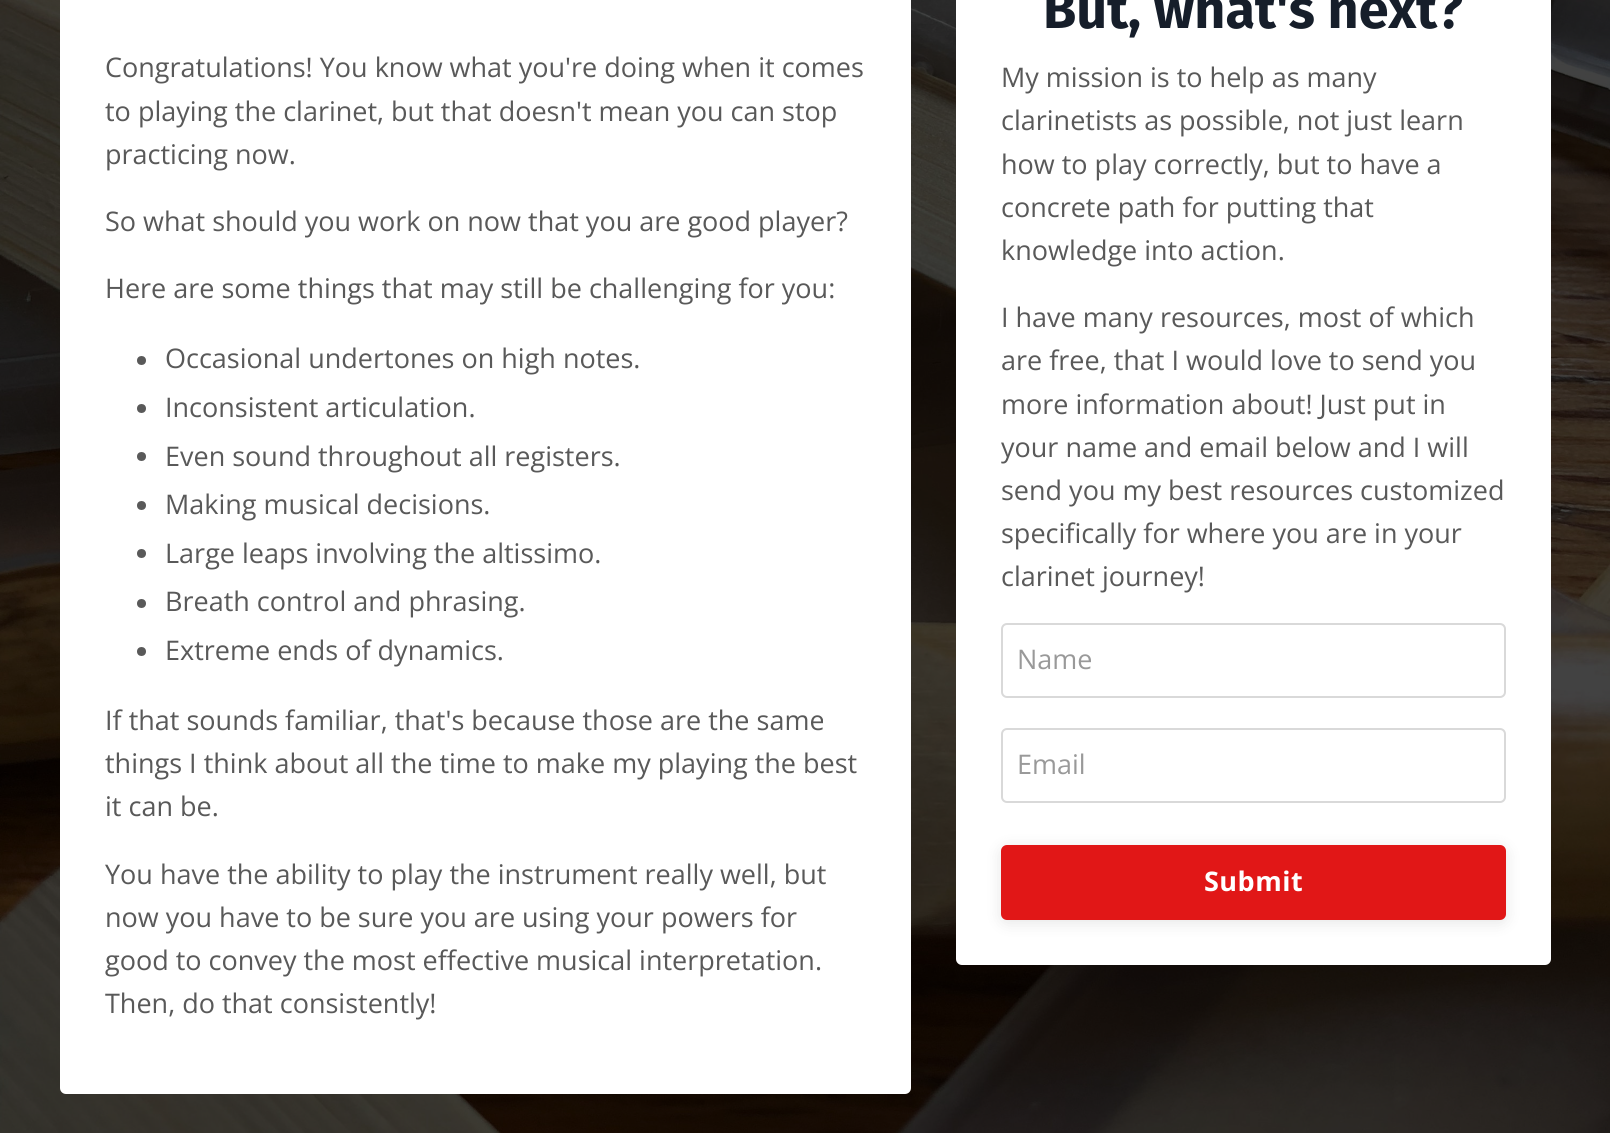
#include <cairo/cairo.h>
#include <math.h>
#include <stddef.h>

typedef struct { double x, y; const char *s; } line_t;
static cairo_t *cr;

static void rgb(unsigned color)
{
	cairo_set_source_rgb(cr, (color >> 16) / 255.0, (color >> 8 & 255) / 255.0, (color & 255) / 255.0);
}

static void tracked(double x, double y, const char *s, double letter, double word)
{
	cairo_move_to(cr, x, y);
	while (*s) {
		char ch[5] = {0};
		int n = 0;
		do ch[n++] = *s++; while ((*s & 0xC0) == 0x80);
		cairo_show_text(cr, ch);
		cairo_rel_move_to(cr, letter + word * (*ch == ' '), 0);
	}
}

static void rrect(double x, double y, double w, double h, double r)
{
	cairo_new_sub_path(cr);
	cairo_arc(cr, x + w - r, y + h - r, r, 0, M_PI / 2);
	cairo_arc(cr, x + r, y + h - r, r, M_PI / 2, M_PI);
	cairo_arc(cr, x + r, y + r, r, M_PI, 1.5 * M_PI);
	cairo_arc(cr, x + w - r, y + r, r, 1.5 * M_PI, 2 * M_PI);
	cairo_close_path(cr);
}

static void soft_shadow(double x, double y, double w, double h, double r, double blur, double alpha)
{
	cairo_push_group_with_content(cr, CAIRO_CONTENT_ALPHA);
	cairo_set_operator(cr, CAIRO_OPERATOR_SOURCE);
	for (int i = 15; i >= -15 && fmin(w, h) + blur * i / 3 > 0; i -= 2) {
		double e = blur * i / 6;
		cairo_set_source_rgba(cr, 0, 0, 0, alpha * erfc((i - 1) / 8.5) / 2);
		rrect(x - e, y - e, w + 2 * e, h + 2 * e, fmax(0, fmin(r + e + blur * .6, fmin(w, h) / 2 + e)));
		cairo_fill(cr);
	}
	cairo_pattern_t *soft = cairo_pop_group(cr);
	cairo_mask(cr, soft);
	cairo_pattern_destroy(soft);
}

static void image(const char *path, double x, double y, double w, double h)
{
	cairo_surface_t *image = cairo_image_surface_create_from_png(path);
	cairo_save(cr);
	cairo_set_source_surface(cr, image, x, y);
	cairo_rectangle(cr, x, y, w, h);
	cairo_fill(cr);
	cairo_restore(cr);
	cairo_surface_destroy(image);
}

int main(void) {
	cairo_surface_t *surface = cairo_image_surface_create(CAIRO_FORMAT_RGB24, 1610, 1133);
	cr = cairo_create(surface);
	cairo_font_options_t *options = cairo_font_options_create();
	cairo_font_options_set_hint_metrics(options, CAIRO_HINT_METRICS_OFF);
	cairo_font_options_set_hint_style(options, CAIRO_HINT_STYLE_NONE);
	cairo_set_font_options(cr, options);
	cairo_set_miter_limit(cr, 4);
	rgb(0xffffff);
	cairo_paint(cr);
	image("img/1.png", 0, 0, 1610, 1133);
	rgb(0xffffff);
	rrect(60, -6, 851, 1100, 6);
	cairo_fill(cr);
	rgb(0x595959);
	cairo_arc(cr, 141.5, 360.5, 4.5, 0, 2 * M_PI);
	cairo_fill(cr);
	cairo_arc(cr, 141.5, 408.5, 4.5, 0, 2 * M_PI);
	cairo_fill(cr);
	cairo_arc(cr, 141.5, 456.5, 4.5, 0, 2 * M_PI);
	cairo_fill(cr);
	cairo_arc(cr, 141.5, 505.5, 4.5, 0, 2 * M_PI);
	cairo_fill(cr);
	cairo_arc(cr, 141.5, 553.5, 4.5, 0, 2 * M_PI);
	cairo_fill(cr);
	cairo_arc(cr, 141.5, 603.5, 4.5, 0, 2 * M_PI);
	cairo_fill(cr);
	cairo_arc(cr, 141.5, 651.5, 4.5, 0, 2 * M_PI);
	cairo_fill(cr);
	rgb(0xffffff);
	rrect(956, -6, 595, 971, 6);
	cairo_fill(cr);
	rrect(1002, 624, 503, 73, 5);
	rgb(0xd9d9d9);
	cairo_stroke(cr);
	rrect(1002, 729, 503, 73, 5);
	cairo_stroke(cr);
	rgb(0x000000);
	soft_shadow(1001, 848, 505, 75, 6, 7.5, 0.1);
	rgb(0xe11717);
	rrect(1002.5, 846.5, 502, 72, 4.5);
	cairo_fill_preserve(cr);
	cairo_set_line_width(cr, 3);
	cairo_stroke(cr);
	cairo_select_font_face(cr, "Open Sans", CAIRO_FONT_SLANT_NORMAL, CAIRO_FONT_WEIGHT_NORMAL);
	cairo_set_font_size(cr, 27);
	rgb(0x595959);
	{
		static const line_t items[] = {
			{105, 77, "Congratulations! You know what you're doing when it comes"},
			{105, 121, "to playing the clarinet, but that doesn't mean you can stop"},
			{105, 164, "practicing now."},
			{105, 231, "So what should you work on now that you are good player?"},
			{105, 298, "Here are some things that may still be challenging for you:"},
			{165, 368, "Occasional undertones on high notes."},
			{165, 417, "Inconsistent articulation."},
			{165, 466, "Even sound throughout all registers."},
			{165, 514, "Making musical decisions."},
			{165, 563, "Large leaps involving the altissimo."},
			{165, 611, "Breath control and phrasing."},
			{165, 660, "Extreme ends of dynamics."},
			{105, 730, "If that sounds familiar, that's because those are the same"},
			{105, 773, "things I think about all the time to make my playing the best"},
			{105, 816, "it can be."},
			{105, 884, "You have the ability to play the instrument really well, but"},
			{105, 927, "now you have to be sure you are using your powers for"},
			{105, 970, "good to convey the most effective musical interpretation."},
			{105, 1013, "Then, do that consistently!"},
		};
		for (size_t i = 0; i < sizeof items / sizeof *items; i++) {
			cairo_move_to(cr, items[i].x, items[i].y);
			cairo_show_text(cr, items[i].s);
		}
	}
	cairo_select_font_face(cr, "Fira Sans", CAIRO_FONT_SLANT_NORMAL, CAIRO_FONT_WEIGHT_BOLD);
	cairo_set_font_size(cr, 54);
	rgb(0x161e2a);
	cairo_move_to(cr, 1043, 28);
	cairo_show_text(cr, "But, what's next?");
	cairo_select_font_face(cr, "Open Sans", CAIRO_FONT_SLANT_NORMAL, CAIRO_FONT_WEIGHT_NORMAL);
	cairo_set_font_size(cr, 27);
	rgb(0x595959);
	{
		static const line_t items[] = {
			{1001, 87, "My mission is to help as many"},
			{1001, 130, "clarinetists as possible, not just learn"},
			{1001, 174, "how to play correctly, but to have a"},
			{1001, 217, "concrete path for putting that"},
			{1001, 260, "knowledge into action."},
			{1001, 327, "I have many resources, most of which"},
			{1001, 370, "are free, that I would love to send you"},
			{1001, 414, "more information about! Just put in"},
			{1001, 457, "your name and email below and I will"},
			{1001, 500, "send you my best resources customized"},
			{1001, 543, "specifically for where you are in your"},
			{1001, 586, "clarinet journey!"},
		};
		for (size_t i = 0; i < sizeof items / sizeof *items; i++) {
			cairo_move_to(cr, items[i].x, items[i].y);
			cairo_show_text(cr, items[i].s);
		}
	}
	rgb(0x999999);
	cairo_move_to(cr, 1017, 669);
	cairo_show_text(cr, "Name");
	cairo_move_to(cr, 1017, 774);
	cairo_show_text(cr, "Email");
	cairo_select_font_face(cr, "Open Sans", CAIRO_FONT_SLANT_NORMAL, CAIRO_FONT_WEIGHT_BOLD);
	rgb(0xffffff);
	tracked(1204, 891, "Submit", 0.5, 0);
	cairo_surface_write_to_png(surface, "page.png");
	cairo_font_options_destroy(options);
	cairo_destroy(cr);
	cairo_surface_destroy(surface);
	return 0;
}
